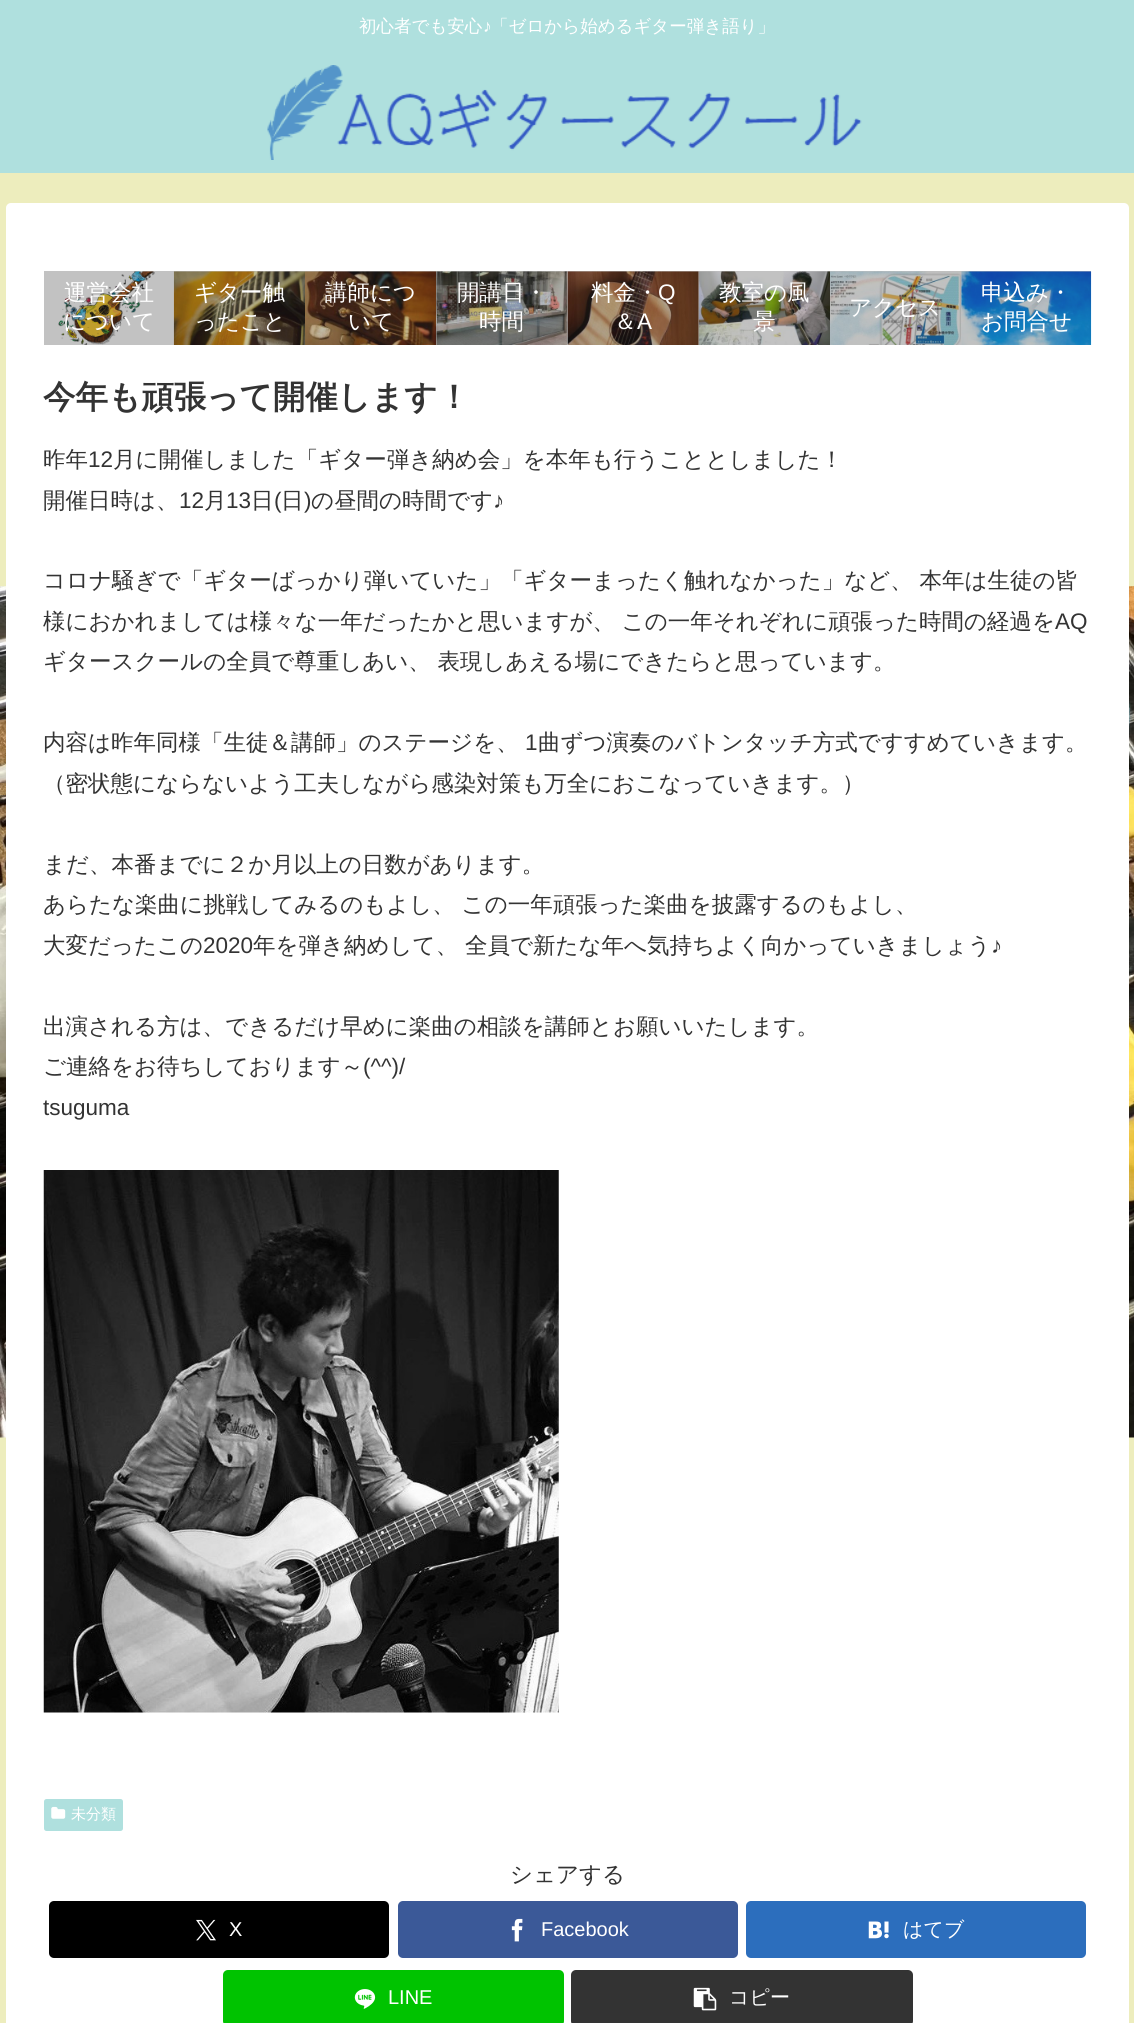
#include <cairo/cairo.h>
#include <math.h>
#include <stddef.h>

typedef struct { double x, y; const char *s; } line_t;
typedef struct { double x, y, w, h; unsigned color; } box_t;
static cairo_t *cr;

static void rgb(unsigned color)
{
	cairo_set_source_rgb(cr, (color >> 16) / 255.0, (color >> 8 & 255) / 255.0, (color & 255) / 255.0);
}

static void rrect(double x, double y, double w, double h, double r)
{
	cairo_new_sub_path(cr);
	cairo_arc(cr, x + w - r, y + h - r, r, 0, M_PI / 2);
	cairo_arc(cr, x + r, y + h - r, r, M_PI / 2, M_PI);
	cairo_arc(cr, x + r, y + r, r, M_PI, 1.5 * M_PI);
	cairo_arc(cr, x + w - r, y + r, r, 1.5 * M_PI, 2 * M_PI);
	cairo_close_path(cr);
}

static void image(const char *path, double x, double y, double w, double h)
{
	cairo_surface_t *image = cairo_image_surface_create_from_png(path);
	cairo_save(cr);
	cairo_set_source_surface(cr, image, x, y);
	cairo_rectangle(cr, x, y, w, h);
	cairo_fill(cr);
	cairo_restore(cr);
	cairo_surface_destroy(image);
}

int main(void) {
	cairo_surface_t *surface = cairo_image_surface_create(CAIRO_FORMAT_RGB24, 1134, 2023);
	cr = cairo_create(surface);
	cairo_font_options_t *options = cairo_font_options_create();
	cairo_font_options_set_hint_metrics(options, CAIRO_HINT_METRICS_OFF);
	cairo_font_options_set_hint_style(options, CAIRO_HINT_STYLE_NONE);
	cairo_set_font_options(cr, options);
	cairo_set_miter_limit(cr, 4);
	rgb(0xededbd);
	cairo_paint(cr);
	image("img/1.png", 0, 586, 1134, 852);
	rgb(0xafe0de);
	cairo_rectangle(cr, 0, 0, 1134, 173);
	cairo_fill(cr);
	image("img/2.png", 267, 65, 595, 95);
	rgb(0xffffff);
	rrect(6, 203, 1123, 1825, 5);
	cairo_fill(cr);
	{
		static const box_t items[] = {
			{961, 271, 130, 74, 0xc2c2c2},
			{699, 271, 262, 1, 0xc2c2c2},
			{568, 271, 131, 74, 0xc2c2c2},
			{174, 271, 262, 1, 0xc2c2c2},
			{44, 271, 130, 74, 0xc2c2c2},
		};
		for (size_t i = 0; i < sizeof items / sizeof *items; i++) {
			rgb(items[i].color);
			cairo_rectangle(cr, items[i].x, items[i].y, items[i].w, items[i].h);
			cairo_fill(cr);
		}
	}
	image("img/3.png", 58, 271, 97, 74);
	image("img/4.png", 173, 271, 132, 74);
	image("img/5.png", 305, 271, 132, 74);
	image("img/6.png", 436, 271, 132, 74);
	cairo_set_source_rgba(cr, 0.2, 0.2, 0.2, 0.3);
	cairo_rectangle(cr, 436, 271, 132, 74);
	cairo_fill(cr);
	image("img/7.png", 567, 271, 132, 74);
	image("img/8.png", 698, 271, 132, 74);
	image("img/9.png", 830, 271, 131, 74);
	image("img/10.png", 961, 271, 131, 74);
	image("img/11.png", 43, 1170, 516, 543);
	rgb(0xafe0de);
	rrect(44, 1799, 79, 32, 2.5);
	cairo_fill(cr);
	image("img/12.png", 51, 1806, 15, 13);
	rgb(0x000000);
	rrect(49, 1901, 340, 57, 5);
	cairo_fill(cr);
	image("img/13.png", 196, 1919, 20, 22);
	rgb(0x3b5998);
	rrect(398, 1901, 340, 57, 5);
	cairo_fill(cr);
	image("img/14.png", 511, 1918, 12, 24);
	rgb(0x2c6ebd);
	rrect(746, 1901, 340, 57, 5);
	cairo_fill(cr);
	image("img/15.png", 868, 1921, 21, 18);
	rgb(0x00c300);
	rrect(223, 1970, 341, 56, 5);
	cairo_fill(cr);
	image("img/16.png", 354, 1989, 22, 20);
	rgb(0x333333);
	rrect(571, 1970, 342, 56, 5);
	cairo_fill(cr);
	image("img/17.png", 693, 1987, 24, 24);
	cairo_select_font_face(cr, "WenQuanYi Zen Hei Medium", CAIRO_FONT_SLANT_NORMAL, CAIRO_FONT_WEIGHT_NORMAL);
	cairo_set_font_size(cr, 17.5);
	rgb(0xffffff);
	cairo_move_to(cr, 359, 32);
	cairo_show_text(cr, "初心者でも安心");
	cairo_select_font_face(cr, "Liberation Sans", CAIRO_FONT_SLANT_NORMAL, CAIRO_FONT_WEIGHT_NORMAL);
	cairo_move_to(cr, 483, 32);
	cairo_show_text(cr, "♪");
	cairo_select_font_face(cr, "WenQuanYi Zen Hei Medium", CAIRO_FONT_SLANT_NORMAL, CAIRO_FONT_WEIGHT_NORMAL);
	cairo_move_to(cr, 491, 32);
	cairo_show_text(cr, "「ゼロから始めるギター弾き語り」");
	cairo_set_font_size(cr, 22.5);
	{
		static const line_t items[] = {
			{64, 300, "運営会社"},
			{63, 329, "について"},
			{194, 300, "ギター触"},
			{194, 329, "ったこと"},
			{325, 300, "講師につ"},
			{348, 329, "いて"},
			{457, 300, "開講日・"},
			{479, 329, "時間"},
			{591, 300, "料金・"},
		};
		for (size_t i = 0; i < sizeof items / sizeof *items; i++) {
			cairo_move_to(cr, items[i].x, items[i].y);
			cairo_show_text(cr, items[i].s);
		}
	}
	cairo_select_font_face(cr, "Liberation Sans", CAIRO_FONT_SLANT_NORMAL, CAIRO_FONT_WEIGHT_NORMAL);
	cairo_move_to(cr, 658, 300);
	cairo_show_text(cr, "Q");
	cairo_select_font_face(cr, "WenQuanYi Zen Hei Medium", CAIRO_FONT_SLANT_NORMAL, CAIRO_FONT_WEIGHT_NORMAL);
	cairo_move_to(cr, 614, 329);
	cairo_show_text(cr, "＆");
	cairo_select_font_face(cr, "Liberation Sans", CAIRO_FONT_SLANT_NORMAL, CAIRO_FONT_WEIGHT_NORMAL);
	cairo_move_to(cr, 637, 329);
	cairo_show_text(cr, "A");
	cairo_select_font_face(cr, "WenQuanYi Zen Hei Medium", CAIRO_FONT_SLANT_NORMAL, CAIRO_FONT_WEIGHT_NORMAL);
	{
		static const line_t items[] = {
			{719, 300, "教室の風"},
			{753, 329, "景"},
			{849, 315, "アクセス"},
			{981, 300, "申込み・"},
			{981, 329, "お問合せ"},
		};
		for (size_t i = 0; i < sizeof items / sizeof *items; i++) {
			cairo_move_to(cr, items[i].x, items[i].y);
			cairo_show_text(cr, items[i].s);
		}
	}
	cairo_select_font_face(cr, "WenQuanYi Zen Hei", CAIRO_FONT_SLANT_NORMAL, CAIRO_FONT_WEIGHT_BOLD);
	cairo_set_font_size(cr, 32.5);
	rgb(0x333333);
	cairo_move_to(cr, 43, 408);
	cairo_show_text(cr, "今年も頑張って開催します！");
	cairo_select_font_face(cr, "WenQuanYi Zen Hei Medium", CAIRO_FONT_SLANT_NORMAL, CAIRO_FONT_WEIGHT_NORMAL);
	cairo_set_font_size(cr, 22.5);
	cairo_move_to(cr, 43, 467);
	cairo_show_text(cr, "昨年");
	cairo_select_font_face(cr, "Liberation Sans", CAIRO_FONT_SLANT_NORMAL, CAIRO_FONT_WEIGHT_NORMAL);
	cairo_move_to(cr, 88, 467);
	cairo_show_text(cr, "12");
	cairo_select_font_face(cr, "WenQuanYi Zen Hei Medium", CAIRO_FONT_SLANT_NORMAL, CAIRO_FONT_WEIGHT_NORMAL);
	cairo_move_to(cr, 113, 467);
	cairo_show_text(cr, "月に開催しました「ギター弾き納め会」を本年も行うこととしました！");
	cairo_move_to(cr, 43, 508);
	cairo_show_text(cr, "開催日時は、");
	cairo_select_font_face(cr, "Liberation Sans", CAIRO_FONT_SLANT_NORMAL, CAIRO_FONT_WEIGHT_NORMAL);
	cairo_move_to(cr, 179, 508);
	cairo_show_text(cr, "12");
	cairo_select_font_face(cr, "WenQuanYi Zen Hei Medium", CAIRO_FONT_SLANT_NORMAL, CAIRO_FONT_WEIGHT_NORMAL);
	cairo_move_to(cr, 204, 508);
	cairo_show_text(cr, "月");
	cairo_select_font_face(cr, "Liberation Sans", CAIRO_FONT_SLANT_NORMAL, CAIRO_FONT_WEIGHT_NORMAL);
	cairo_move_to(cr, 226, 508);
	cairo_show_text(cr, "13");
	cairo_select_font_face(cr, "WenQuanYi Zen Hei Medium", CAIRO_FONT_SLANT_NORMAL, CAIRO_FONT_WEIGHT_NORMAL);
	cairo_move_to(cr, 251, 508);
	cairo_show_text(cr, "日");
	cairo_select_font_face(cr, "Liberation Sans", CAIRO_FONT_SLANT_NORMAL, CAIRO_FONT_WEIGHT_NORMAL);
	cairo_move_to(cr, 274, 508);
	cairo_show_text(cr, "(");
	cairo_select_font_face(cr, "WenQuanYi Zen Hei Medium", CAIRO_FONT_SLANT_NORMAL, CAIRO_FONT_WEIGHT_NORMAL);
	cairo_move_to(cr, 281, 508);
	cairo_show_text(cr, "日");
	cairo_select_font_face(cr, "Liberation Sans", CAIRO_FONT_SLANT_NORMAL, CAIRO_FONT_WEIGHT_NORMAL);
	cairo_move_to(cr, 304, 508);
	cairo_show_text(cr, ")");
	cairo_select_font_face(cr, "WenQuanYi Zen Hei Medium", CAIRO_FONT_SLANT_NORMAL, CAIRO_FONT_WEIGHT_NORMAL);
	cairo_move_to(cr, 311, 508);
	cairo_show_text(cr, "の昼間の時間です");
	cairo_select_font_face(cr, "Liberation Sans", CAIRO_FONT_SLANT_NORMAL, CAIRO_FONT_WEIGHT_NORMAL);
	cairo_move_to(cr, 493, 508);
	cairo_show_text(cr, "♪");
	cairo_select_font_face(cr, "WenQuanYi Zen Hei Medium", CAIRO_FONT_SLANT_NORMAL, CAIRO_FONT_WEIGHT_NORMAL);
	cairo_move_to(cr, 43, 588);
	cairo_show_text(cr, "コロナ騒ぎで「ギターばっかり弾いていた」「ギターまったく触れなかった」など、 本年は生徒の皆");
	cairo_move_to(cr, 43, 629);
	cairo_show_text(cr, "様におかれましては様々な一年だったかと思いますが、 この一年それぞれに頑張った時間の経過を");
	cairo_select_font_face(cr, "Liberation Sans", CAIRO_FONT_SLANT_NORMAL, CAIRO_FONT_WEIGHT_NORMAL);
	cairo_move_to(cr, 1055, 629);
	cairo_show_text(cr, "AQ");
	cairo_select_font_face(cr, "WenQuanYi Zen Hei Medium", CAIRO_FONT_SLANT_NORMAL, CAIRO_FONT_WEIGHT_NORMAL);
	cairo_move_to(cr, 43, 669);
	cairo_show_text(cr, "ギタースクールの全員で尊重しあい、 表現しあえる場にできたらと思っています。");
	cairo_move_to(cr, 43, 750);
	cairo_show_text(cr, "内容は昨年同様「生徒＆講師」のステージを、");
	cairo_select_font_face(cr, "Liberation Sans", CAIRO_FONT_SLANT_NORMAL, CAIRO_FONT_WEIGHT_NORMAL);
	cairo_move_to(cr, 525, 750);
	cairo_show_text(cr, "1");
	cairo_select_font_face(cr, "WenQuanYi Zen Hei Medium", CAIRO_FONT_SLANT_NORMAL, CAIRO_FONT_WEIGHT_NORMAL);
	{
		static const line_t items[] = {
			{538, 750, "曲ずつ演奏のバトンタッチ方式ですすめていきます。"},
			{43, 791, "（密状態にならないよう工夫しながら感染対策も万全におこなっていきます。）"},
			{43, 872, "まだ、本番までに２か月以上の日数があります。"},
			{43, 912, "あらたな楽曲に挑戦してみるのもよし、 この一年頑張った楽曲を披露するのもよし、"},
			{43, 953, "大変だったこの"},
		};
		for (size_t i = 0; i < sizeof items / sizeof *items; i++) {
			cairo_move_to(cr, items[i].x, items[i].y);
			cairo_show_text(cr, items[i].s);
		}
	}
	cairo_select_font_face(cr, "Liberation Sans", CAIRO_FONT_SLANT_NORMAL, CAIRO_FONT_WEIGHT_NORMAL);
	cairo_move_to(cr, 203, 953);
	cairo_show_text(cr, "2020");
	cairo_select_font_face(cr, "WenQuanYi Zen Hei Medium", CAIRO_FONT_SLANT_NORMAL, CAIRO_FONT_WEIGHT_NORMAL);
	cairo_move_to(cr, 253, 953);
	cairo_show_text(cr, "年を弾き納めして、 全員で新たな年へ気持ちよく向かっていきましょう");
	cairo_select_font_face(cr, "Liberation Sans", CAIRO_FONT_SLANT_NORMAL, CAIRO_FONT_WEIGHT_NORMAL);
	cairo_move_to(cr, 991, 953);
	cairo_show_text(cr, "♪");
	cairo_select_font_face(cr, "WenQuanYi Zen Hei Medium", CAIRO_FONT_SLANT_NORMAL, CAIRO_FONT_WEIGHT_NORMAL);
	cairo_move_to(cr, 43, 1034);
	cairo_show_text(cr, "出演される方は、できるだけ早めに楽曲の相談を講師とお願いいたします。");
	cairo_move_to(cr, 43, 1074);
	cairo_show_text(cr, "ご連絡をお待ちしております～");
	cairo_select_font_face(cr, "Liberation Sans", CAIRO_FONT_SLANT_NORMAL, CAIRO_FONT_WEIGHT_NORMAL);
	cairo_move_to(cr, 363, 1074);
	cairo_show_text(cr, "(^^)/");
	cairo_move_to(cr, 43, 1115);
	cairo_show_text(cr, "tsuguma");
	cairo_select_font_face(cr, "WenQuanYi Zen Hei Medium", CAIRO_FONT_SLANT_NORMAL, CAIRO_FONT_WEIGHT_NORMAL);
	cairo_set_font_size(cr, 15);
	rgb(0xffffff);
	cairo_move_to(cr, 71, 1819);
	cairo_show_text(cr, "未分類");
	cairo_set_font_size(cr, 22.5);
	rgb(0x333333);
	cairo_move_to(cr, 510, 1882);
	cairo_show_text(cr, "シェアする");
	cairo_select_font_face(cr, "Liberation Sans", CAIRO_FONT_SLANT_NORMAL, CAIRO_FONT_WEIGHT_NORMAL);
	cairo_set_font_size(cr, 20);
	rgb(0xffffff);
	cairo_move_to(cr, 229, 1936);
	cairo_show_text(cr, "X");
	cairo_move_to(cr, 541, 1936);
	cairo_show_text(cr, "Facebook");
	cairo_select_font_face(cr, "WenQuanYi Zen Hei Medium", CAIRO_FONT_SLANT_NORMAL, CAIRO_FONT_WEIGHT_NORMAL);
	cairo_move_to(cr, 903, 1936);
	cairo_show_text(cr, "はてブ");
	cairo_select_font_face(cr, "Liberation Sans", CAIRO_FONT_SLANT_NORMAL, CAIRO_FONT_WEIGHT_NORMAL);
	cairo_move_to(cr, 388, 2004);
	cairo_show_text(cr, "LINE");
	cairo_select_font_face(cr, "WenQuanYi Zen Hei Medium", CAIRO_FONT_SLANT_NORMAL, CAIRO_FONT_WEIGHT_NORMAL);
	cairo_move_to(cr, 729, 2004);
	cairo_show_text(cr, "コピー");
	cairo_surface_write_to_png(surface, "page.png");
	cairo_font_options_destroy(options);
	cairo_destroy(cr);
	cairo_surface_destroy(surface);
	return 0;
}
